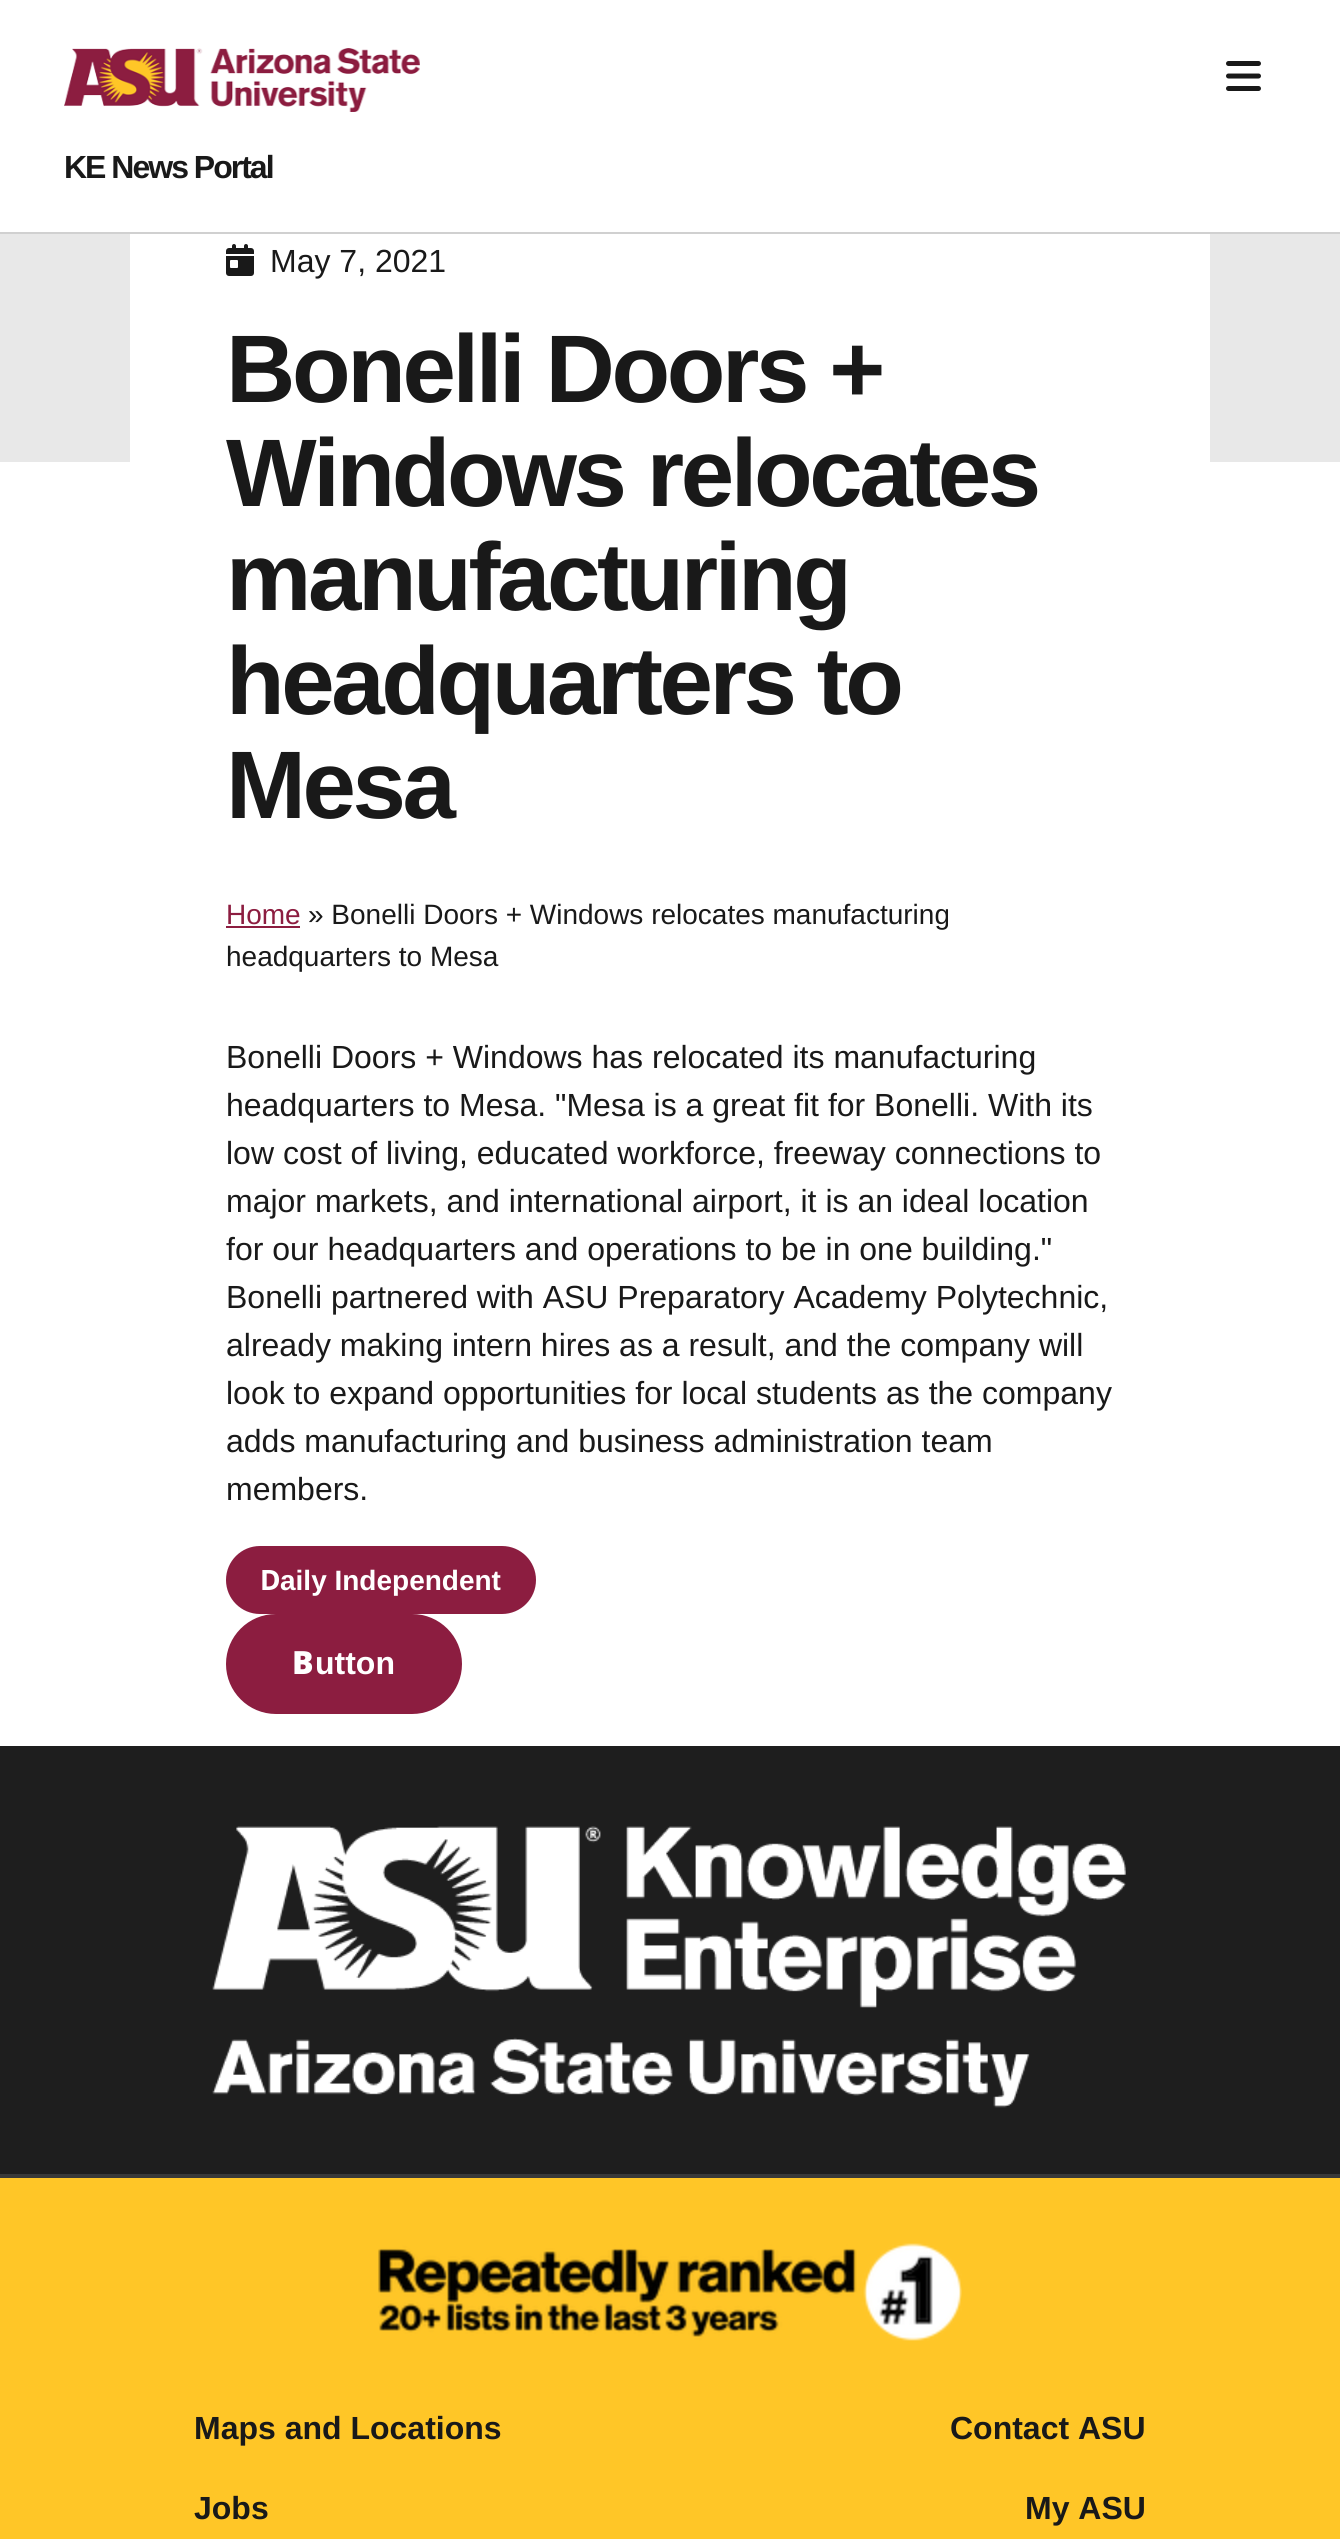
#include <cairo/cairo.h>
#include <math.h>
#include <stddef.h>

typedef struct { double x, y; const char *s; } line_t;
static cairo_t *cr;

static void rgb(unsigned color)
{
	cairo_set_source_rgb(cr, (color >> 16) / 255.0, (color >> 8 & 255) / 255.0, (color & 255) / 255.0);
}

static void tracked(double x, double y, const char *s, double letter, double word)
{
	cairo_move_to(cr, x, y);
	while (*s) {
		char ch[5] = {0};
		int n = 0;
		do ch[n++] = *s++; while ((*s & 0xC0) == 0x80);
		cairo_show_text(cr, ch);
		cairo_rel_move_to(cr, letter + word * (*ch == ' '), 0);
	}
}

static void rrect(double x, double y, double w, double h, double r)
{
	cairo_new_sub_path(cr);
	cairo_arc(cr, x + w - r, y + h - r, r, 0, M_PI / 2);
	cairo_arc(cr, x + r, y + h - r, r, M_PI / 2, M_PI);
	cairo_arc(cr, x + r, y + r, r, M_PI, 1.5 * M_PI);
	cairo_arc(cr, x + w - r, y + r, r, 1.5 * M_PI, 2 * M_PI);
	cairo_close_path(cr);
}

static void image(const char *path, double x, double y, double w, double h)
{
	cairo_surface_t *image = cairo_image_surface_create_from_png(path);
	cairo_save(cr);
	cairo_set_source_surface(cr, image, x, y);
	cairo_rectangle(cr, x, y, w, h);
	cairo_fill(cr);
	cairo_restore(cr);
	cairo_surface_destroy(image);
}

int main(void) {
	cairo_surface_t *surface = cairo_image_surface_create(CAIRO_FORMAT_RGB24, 1340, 2539);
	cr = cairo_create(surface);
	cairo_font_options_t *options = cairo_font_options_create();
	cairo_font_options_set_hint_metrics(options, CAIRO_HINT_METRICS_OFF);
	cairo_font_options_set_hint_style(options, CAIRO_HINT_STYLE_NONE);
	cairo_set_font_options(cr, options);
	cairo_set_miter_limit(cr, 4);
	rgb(0xffffff);
	cairo_paint(cr);
	rgb(0xd0d0d0);
	cairo_rectangle(cr, 0, 232, 1340, 2);
	cairo_fill(cr);
	image("img/1.png", 64, 48, 356, 64);
	image("img/2.png", 1226, 61, 35, 30);
	rgb(0xe8e8e8);
	cairo_rectangle(cr, 0, 234, 1340, 228);
	cairo_fill(cr);
	rgb(0xffffff);
	cairo_rectangle(cr, 130, 234, 1080, 228);
	cairo_fill(cr);
	image("img/3.png", 226, 244, 28, 32);
	rgb(0x8c1d40);
	cairo_rectangle(cr, 226, 926, 74, 2);
	cairo_fill(cr);
	rrect(227, 1547, 308, 66, 33);
	cairo_fill_preserve(cr);
	cairo_stroke(cr);
	rrect(227, 1615, 234, 98, 49);
	cairo_fill_preserve(cr);
	cairo_stroke(cr);
	rgb(0x1e1e1e);
	cairo_rectangle(cr, 0, 1746, 1340, 428);
	cairo_fill(cr);
	image("img/4.png", 212, 1826, 914, 282);
	rgb(0x393939);
	cairo_rectangle(cr, 0, 2174, 1340, 4);
	cairo_fill(cr);
	rgb(0xffc627);
	cairo_rectangle(cr, 0, 2178, 1340, 361);
	cairo_fill(cr);
	image("img/5.png", 378, 2243, 584, 98);
	cairo_select_font_face(cr, "Liberation Sans", CAIRO_FONT_SLANT_NORMAL, CAIRO_FONT_WEIGHT_BOLD);
	cairo_set_font_size(cr, 32);
	rgb(0x191919);
	tracked(64, 178, "KE News Portal", -2, 0);
	cairo_select_font_face(cr, "Liberation Sans", CAIRO_FONT_SLANT_NORMAL, CAIRO_FONT_WEIGHT_NORMAL);
	cairo_move_to(cr, 270, 272);
	cairo_show_text(cr, "May 7, 2021");
	cairo_select_font_face(cr, "Liberation Sans", CAIRO_FONT_SLANT_NORMAL, CAIRO_FONT_WEIGHT_BOLD);
	cairo_set_font_size(cr, 96);
	{
		static const line_t items[] = {
			{226, 402, "Bonelli Doors +"},
			{226, 506, "Windows relocates"},
			{226, 610, "manufacturing"},
			{226, 714, "headquarters to"},
			{226, 818, "Mesa"},
		};
		for (size_t i = 0; i < sizeof items / sizeof *items; i++) {
			tracked(items[i].x, items[i].y, items[i].s, -3.4, 0);
		}
	}
	cairo_select_font_face(cr, "Liberation Sans", CAIRO_FONT_SLANT_NORMAL, CAIRO_FONT_WEIGHT_NORMAL);
	cairo_set_font_size(cr, 28);
	rgb(0x8c1d40);
	cairo_move_to(cr, 226, 924);
	cairo_show_text(cr, "Home");
	rgb(0x191919);
	cairo_move_to(cr, 308, 924);
	cairo_show_text(cr, "» Bonelli Doors + Windows relocates manufacturing");
	cairo_move_to(cr, 226, 966);
	cairo_show_text(cr, "headquarters to Mesa");
	cairo_set_font_size(cr, 32);
	{
		static const line_t items[] = {
			{226, 1068, "Bonelli Doors + Windows has relocated its manufacturing"},
			{226, 1116, "headquarters to Mesa. \"Mesa is a great fit for Bonelli. With its"},
			{226, 1164, "low cost of living, educated workforce, freeway connections to"},
			{226, 1212, "major markets, and international airport, it is an ideal location"},
			{226, 1260, "for our headquarters and operations to be in one building.\""},
			{226, 1308, "Bonelli partnered with ASU Preparatory Academy Polytechnic,"},
			{226, 1356, "already making intern hires as a result, and the company will"},
			{226, 1404, "look to expand opportunities for local students as the company"},
			{226, 1452, "adds manufacturing and business administration team"},
			{226, 1500, "members."},
		};
		for (size_t i = 0; i < sizeof items / sizeof *items; i++) {
			cairo_move_to(cr, items[i].x, items[i].y);
			cairo_show_text(cr, items[i].s);
		}
	}
	cairo_select_font_face(cr, "Noto Sans", CAIRO_FONT_SLANT_NORMAL, CAIRO_FONT_WEIGHT_BOLD);
	cairo_set_font_size(cr, 28);
	rgb(0xffffff);
	cairo_move_to(cr, 260, 1590);
	cairo_show_text(cr, "D");
	cairo_select_font_face(cr, "Liberation Sans", CAIRO_FONT_SLANT_NORMAL, CAIRO_FONT_WEIGHT_BOLD);
	cairo_move_to(cr, 280, 1590);
	cairo_show_text(cr, "aily Independent");
	cairo_select_font_face(cr, "Noto Sans Black", CAIRO_FONT_SLANT_NORMAL, CAIRO_FONT_WEIGHT_NORMAL);
	cairo_set_font_size(cr, 32);
	cairo_move_to(cr, 292, 1674);
	cairo_show_text(cr, "B");
	cairo_select_font_face(cr, "Liberation Sans", CAIRO_FONT_SLANT_NORMAL, CAIRO_FONT_WEIGHT_BOLD);
	cairo_move_to(cr, 315, 1674);
	cairo_show_text(cr, "utton");
	rgb(0x191919);
	{
		static const line_t items[] = {
			{194, 2439, "Maps and Locations"},
			{950, 2439, "Contact ASU"},
			{194, 2519, "Jobs"},
			{1025, 2519, "My ASU"},
		};
		for (size_t i = 0; i < sizeof items / sizeof *items; i++) {
			cairo_move_to(cr, items[i].x, items[i].y);
			cairo_show_text(cr, items[i].s);
		}
	}
	cairo_surface_write_to_png(surface, "page.png");
	cairo_font_options_destroy(options);
	cairo_destroy(cr);
	cairo_surface_destroy(surface);
	return 0;
}
